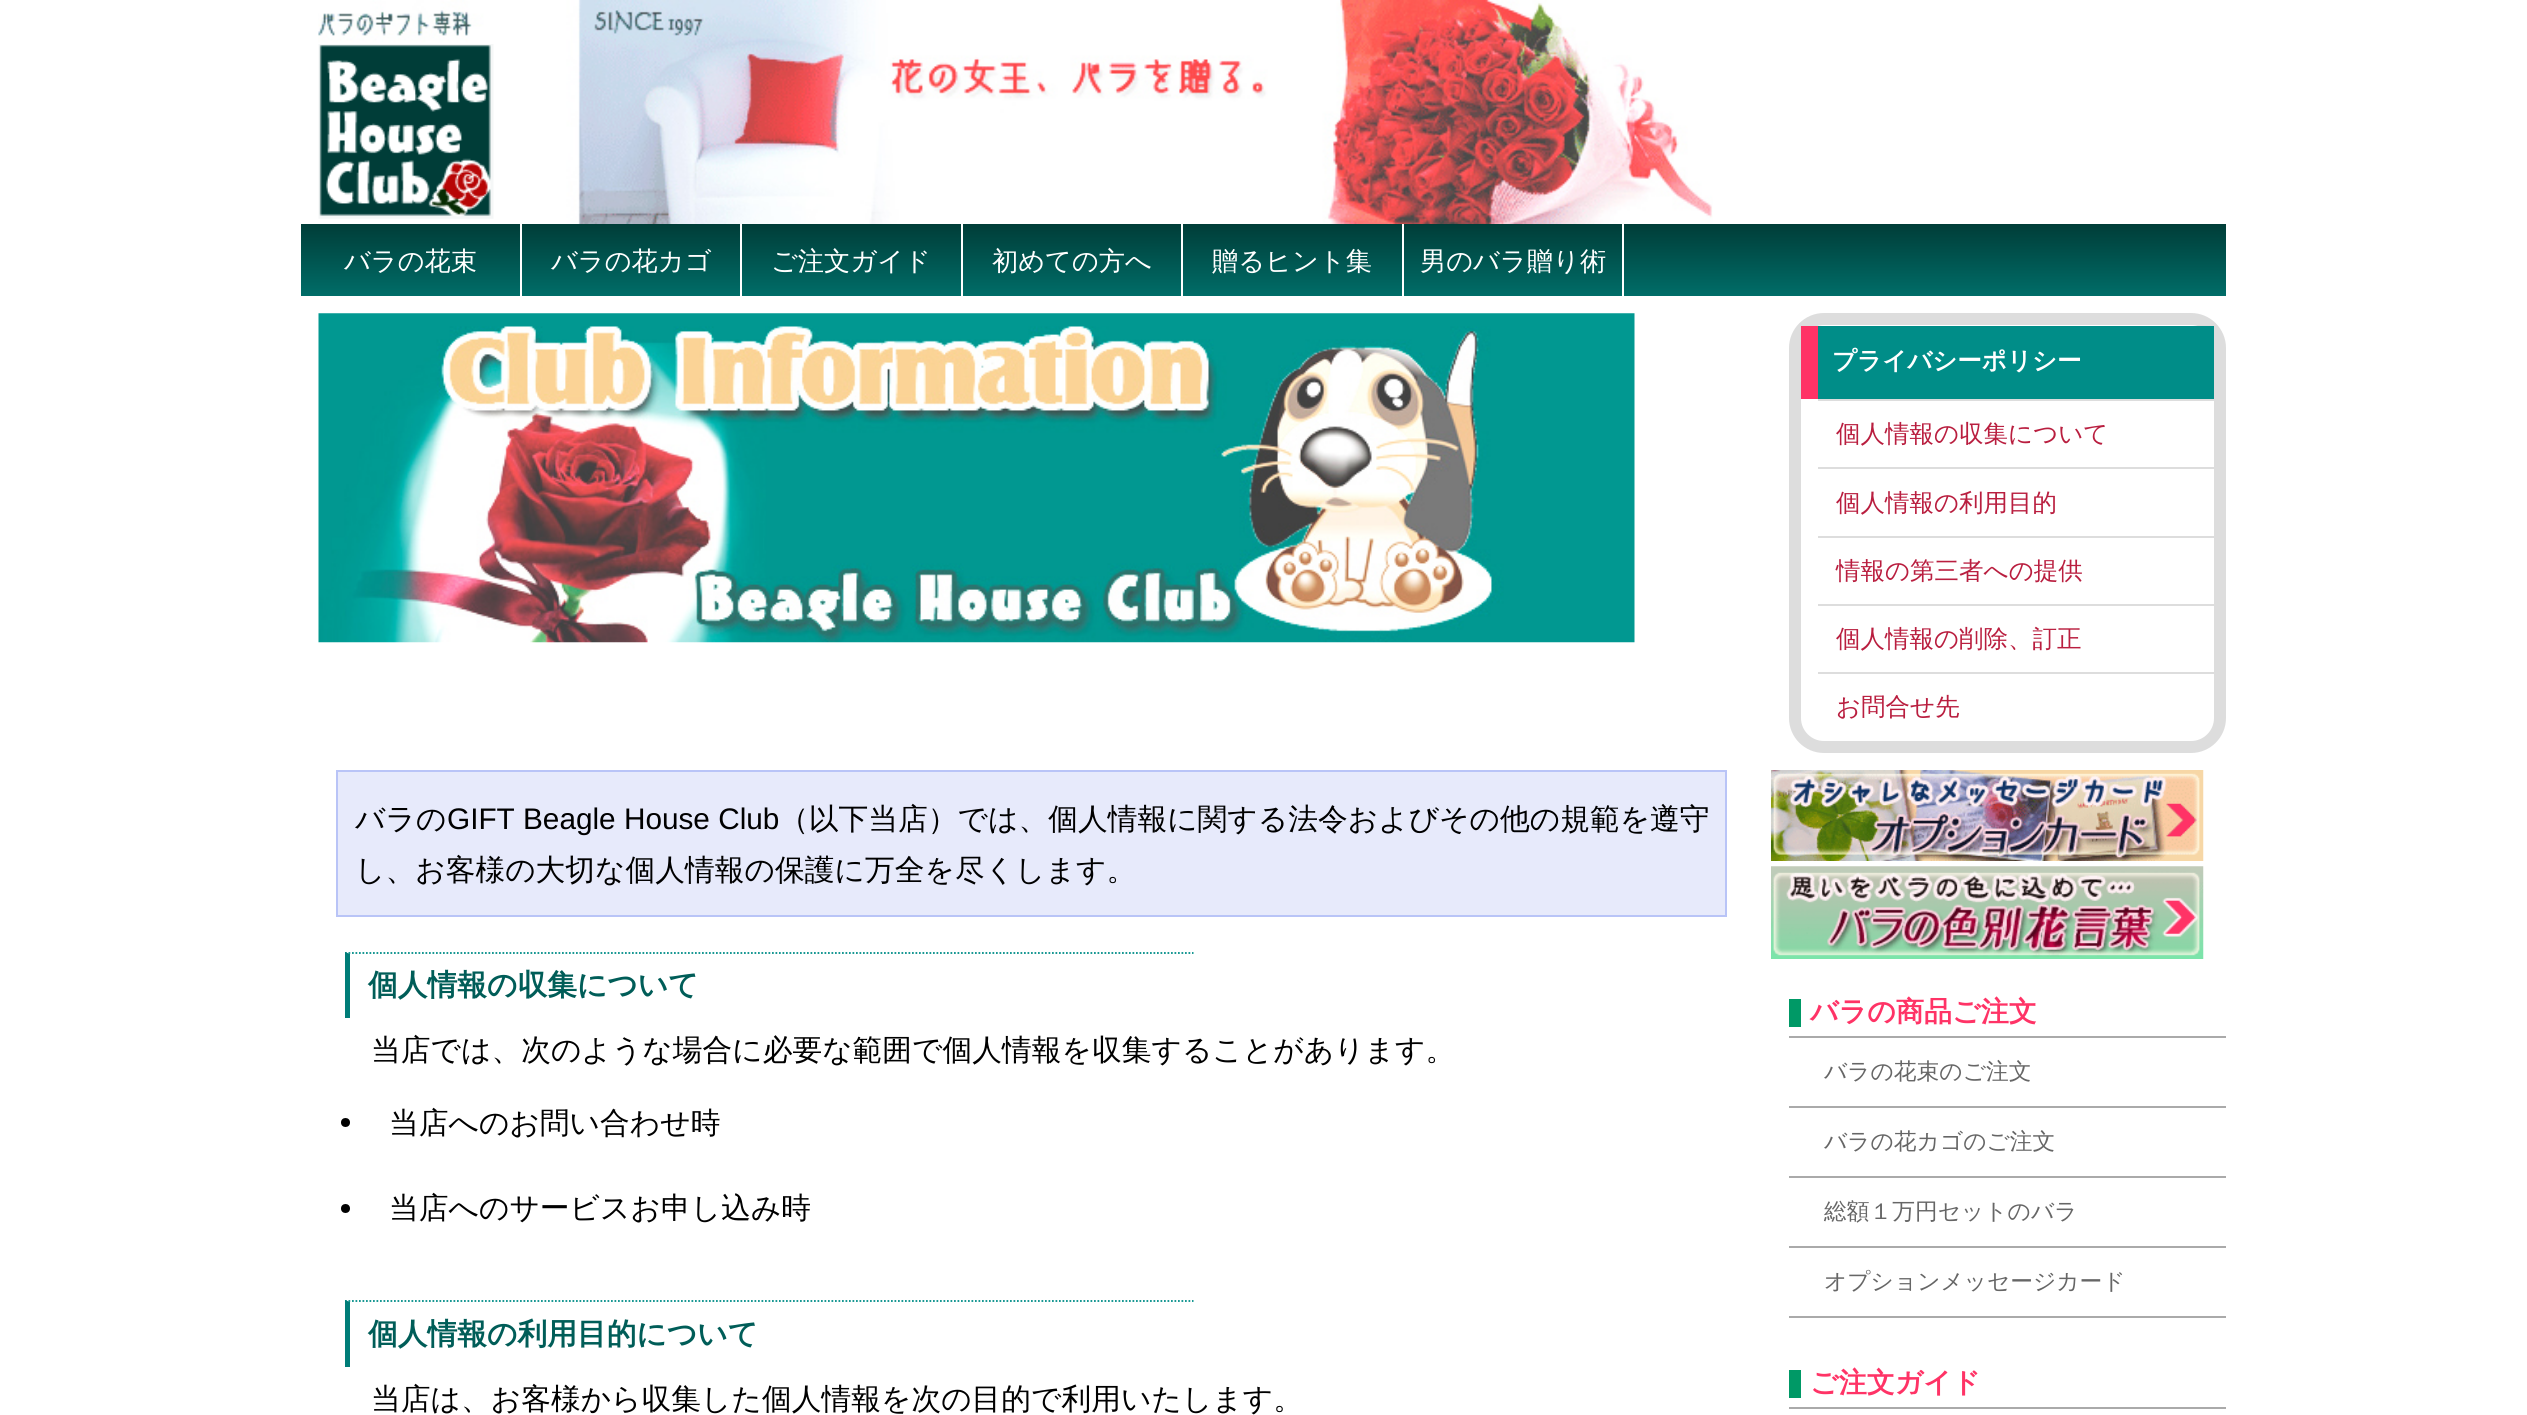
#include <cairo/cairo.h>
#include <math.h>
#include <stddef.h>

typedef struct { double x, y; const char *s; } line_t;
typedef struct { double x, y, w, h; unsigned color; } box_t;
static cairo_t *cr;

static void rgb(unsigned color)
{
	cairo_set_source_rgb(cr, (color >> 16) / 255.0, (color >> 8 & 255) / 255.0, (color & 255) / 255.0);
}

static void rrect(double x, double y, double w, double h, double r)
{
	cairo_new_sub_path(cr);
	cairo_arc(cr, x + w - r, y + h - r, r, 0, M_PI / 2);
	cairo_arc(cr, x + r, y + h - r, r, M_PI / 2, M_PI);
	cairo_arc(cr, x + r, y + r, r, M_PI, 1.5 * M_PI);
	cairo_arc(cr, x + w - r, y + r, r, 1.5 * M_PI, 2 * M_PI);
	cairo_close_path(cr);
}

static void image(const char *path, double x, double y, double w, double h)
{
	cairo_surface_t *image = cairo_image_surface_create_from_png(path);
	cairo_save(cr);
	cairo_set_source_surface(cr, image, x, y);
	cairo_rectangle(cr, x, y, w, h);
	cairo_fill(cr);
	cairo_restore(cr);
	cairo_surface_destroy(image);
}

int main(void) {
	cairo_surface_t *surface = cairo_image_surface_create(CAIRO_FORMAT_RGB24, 2527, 1415);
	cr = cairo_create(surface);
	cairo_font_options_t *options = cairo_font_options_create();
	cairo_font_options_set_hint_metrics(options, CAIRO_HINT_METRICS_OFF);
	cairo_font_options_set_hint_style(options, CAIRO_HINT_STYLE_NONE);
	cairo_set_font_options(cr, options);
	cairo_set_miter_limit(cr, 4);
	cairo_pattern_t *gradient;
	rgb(0xffffff);
	cairo_paint(cr);
	image("img/1.png", 318, 0, 1395, 224);
	image("img/2.png", 318, 44, 176, 175);
	gradient = cairo_pattern_create_linear(1264, 296, 1264, 224);
	cairo_pattern_add_color_stop_rgba(gradient, 0, 0, 0.427, 0.408, 1);
	cairo_pattern_add_color_stop_rgba(gradient, 1, 0, 0.239, 0.22, 1);
	cairo_set_source(cr, gradient);
	cairo_pattern_destroy(gradient);
	cairo_rectangle(cr, 301, 224, 1925, 72);
	cairo_fill(cr);
	{
		static const box_t items[] = {
			{520, 224, 2, 72, 0xffffff},
			{740, 224, 2, 72, 0xffffff},
			{961, 224, 2, 72, 0xffffff},
			{1181, 224, 2, 72, 0xffffff},
			{1402, 224, 2, 72, 0xffffff},
			{1622, 224, 2, 72, 0xffffff},
		};
		for (size_t i = 0; i < sizeof items / sizeof *items; i++) {
			rgb(items[i].color);
			cairo_rectangle(cr, items[i].x, items[i].y, items[i].w, items[i].h);
			cairo_fill(cr);
		}
	}
	image("img/3.png", 318, 313, 1317, 330);
	rrect(1795, 319, 425, 428, 29);
	rgb(0xdddddd);
	cairo_set_line_width(cr, 12);
	cairo_stroke(cr);
	{
		static const box_t items[] = {
			{1818, 326, 396, 73, 0x008d88},
			{1801, 326, 17, 73, 0xff3366},
			{1818, 399, 396, 2, 0xdddddd},
			{1818, 467, 396, 2, 0xdddddd},
			{1818, 536, 396, 2, 0xdddddd},
			{1818, 604, 396, 2, 0xdddddd},
			{1818, 672, 396, 2, 0xdddddd},
		};
		for (size_t i = 0; i < sizeof items / sizeof *items; i++) {
			rgb(items[i].color);
			cairo_rectangle(cr, items[i].x, items[i].y, items[i].w, items[i].h);
			cairo_fill(cr);
		}
	}
	rgb(0xe7eafb);
	cairo_rectangle(cr, 337, 771, 1389, 145);
	cairo_fill_preserve(cr);
	rgb(0xb9c4f7);
	cairo_set_line_width(cr, 2);
	cairo_stroke(cr);
	cairo_new_path(cr);
	cairo_move_to(cr, 345, 953);
	cairo_line_to(cr, 1193.5, 953);
	rgb(0x008d88);
	cairo_set_line_width(cr, 1.8);
	cairo_set_dash(cr, (double[]){1.75, 1.75}, 2, 0);
	cairo_stroke(cr);
	rgb(0x007d78);
	cairo_new_path(cr);
	cairo_move_to(cr, 345, 1018);
	cairo_line_to(cr, 345, 952);
	cairo_line_to(cr, 350, 954);
	cairo_line_to(cr, 350, 1018);
	cairo_close_path(cr);
	cairo_fill(cr);
	rgb(0x000000);
	cairo_arc(cr, 345.5, 1122.5, 4.5, 0, 2 * M_PI);
	cairo_fill(cr);
	cairo_arc(cr, 345.5, 1208.5, 4.5, 0, 2 * M_PI);
	cairo_fill(cr);
	cairo_new_path(cr);
	cairo_move_to(cr, 345, 1301);
	cairo_line_to(cr, 1193.5, 1301);
	rgb(0x008d88);
	cairo_stroke(cr);
	rgb(0x007d78);
	cairo_new_path(cr);
	cairo_move_to(cr, 345, 1367);
	cairo_line_to(cr, 345, 1300);
	cairo_line_to(cr, 350, 1302);
	cairo_line_to(cr, 350, 1367);
	cairo_close_path(cr);
	cairo_fill(cr);
	image("img/4.png", 1771, 770, 433, 91);
	image("img/5.png", 1771, 866, 433, 93);
	{
		static const box_t items[] = {
			{1789, 999, 12, 28, 0x009966},
			{1789, 1036, 437, 2, 0xaaaaaa},
			{1789, 1106, 437, 2, 0xaaaaaa},
			{1789, 1176, 437, 2, 0xaaaaaa},
			{1789, 1246, 437, 2, 0xaaaaaa},
			{1789, 1316, 437, 2, 0xaaaaaa},
			{1789, 1370, 12, 28, 0x009966},
			{1789, 1407, 437, 2, 0xaaaaaa},
		};
		for (size_t i = 0; i < sizeof items / sizeof *items; i++) {
			rgb(items[i].color);
			cairo_rectangle(cr, items[i].x, items[i].y, items[i].w, items[i].h);
			cairo_fill(cr);
		}
	}
	cairo_select_font_face(cr, "WenQuanYi Zen Hei Medium", CAIRO_FONT_SLANT_NORMAL, CAIRO_FONT_WEIGHT_NORMAL);
	cairo_set_font_size(cr, 26.25);
	rgb(0xffffff);
	{
		static const line_t items[] = {
			{344, 270, "バラの花束"},
			{551, 270, "バラの花カゴ"},
			{771, 270, "ご注文ガイド"},
			{992, 270, "初めての方へ"},
			{1212, 270, "贈るヒント集"},
			{1420, 270, "男のバラ贈り術"},
		};
		for (size_t i = 0; i < sizeof items / sizeof *items; i++) {
			cairo_move_to(cr, items[i].x, items[i].y);
			cairo_show_text(cr, items[i].s);
		}
	}
	cairo_select_font_face(cr, "WenQuanYi Zen Hei", CAIRO_FONT_SLANT_NORMAL, CAIRO_FONT_WEIGHT_BOLD);
	cairo_set_font_size(cr, 24.5);
	cairo_move_to(cr, 1832, 369);
	cairo_show_text(cr, "プライバシーポリシー");
	cairo_select_font_face(cr, "WenQuanYi Zen Hei Medium", CAIRO_FONT_SLANT_NORMAL, CAIRO_FONT_WEIGHT_NORMAL);
	rgb(0xb91e3f);
	{
		static const line_t items[] = {
			{1836, 442, "個人情報の収集について"},
			{1836, 511, "個人情報の利用目的"},
			{1836, 579, "情報の第三者への提供"},
			{1836, 647, "個人情報の削除、訂正"},
			{1836, 715, "お問合せ先"},
		};
		for (size_t i = 0; i < sizeof items / sizeof *items; i++) {
			cairo_move_to(cr, items[i].x, items[i].y);
			cairo_show_text(cr, items[i].s);
		}
	}
	cairo_set_font_size(cr, 29.75);
	rgb(0x000000);
	cairo_move_to(cr, 355, 829);
	cairo_show_text(cr, "バラの");
	cairo_select_font_face(cr, "Liberation Sans", CAIRO_FONT_SLANT_NORMAL, CAIRO_FONT_WEIGHT_NORMAL);
	cairo_move_to(cr, 447, 829);
	cairo_show_text(cr, "GIFT Beagle House Club");
	cairo_select_font_face(cr, "WenQuanYi Zen Hei Medium", CAIRO_FONT_SLANT_NORMAL, CAIRO_FONT_WEIGHT_NORMAL);
	cairo_move_to(cr, 779, 829);
	cairo_show_text(cr, "（以下当店）では、個人情報に関する法令およびその他の規範を遵守");
	cairo_move_to(cr, 355, 880);
	cairo_show_text(cr, "し、お客様の大切な個人情報の保護に万全を尽くします。");
	cairo_select_font_face(cr, "WenQuanYi Zen Hei", CAIRO_FONT_SLANT_NORMAL, CAIRO_FONT_WEIGHT_BOLD);
	rgb(0x005d58);
	cairo_move_to(cr, 368, 995);
	cairo_show_text(cr, "個人情報の収集について");
	cairo_select_font_face(cr, "WenQuanYi Zen Hei Medium", CAIRO_FONT_SLANT_NORMAL, CAIRO_FONT_WEIGHT_NORMAL);
	rgb(0x000000);
	{
		static const line_t items[] = {
			{371, 1060, "当店では、次のような場合に必要な範囲で個人情報を収集することがあります。"},
			{389, 1133, "当店へのお問い合わせ時"},
			{389, 1218, "当店へのサービスお申し込み時"},
		};
		for (size_t i = 0; i < sizeof items / sizeof *items; i++) {
			cairo_move_to(cr, items[i].x, items[i].y);
			cairo_show_text(cr, items[i].s);
		}
	}
	cairo_select_font_face(cr, "WenQuanYi Zen Hei", CAIRO_FONT_SLANT_NORMAL, CAIRO_FONT_WEIGHT_BOLD);
	rgb(0x005d58);
	cairo_move_to(cr, 368, 1344);
	cairo_show_text(cr, "個人情報の利用目的について");
	cairo_select_font_face(cr, "WenQuanYi Zen Hei Medium", CAIRO_FONT_SLANT_NORMAL, CAIRO_FONT_WEIGHT_NORMAL);
	rgb(0x000000);
	cairo_move_to(cr, 371, 1409);
	cairo_show_text(cr, "当店は、お客様から収集した個人情報を次の目的で利用いたします。");
	cairo_select_font_face(cr, "WenQuanYi Zen Hei", CAIRO_FONT_SLANT_NORMAL, CAIRO_FONT_WEIGHT_BOLD);
	cairo_set_font_size(cr, 28);
	rgb(0xff3366);
	cairo_move_to(cr, 1810, 1021);
	cairo_show_text(cr, "バラの商品ご注文");
	cairo_select_font_face(cr, "WenQuanYi Zen Hei Medium", CAIRO_FONT_SLANT_NORMAL, CAIRO_FONT_WEIGHT_NORMAL);
	cairo_set_font_size(cr, 22.75);
	rgb(0x666666);
	{
		static const line_t items[] = {
			{1824, 1079, "バラの花束のご注文"},
			{1824, 1149, "バラの花カゴのご注文"},
			{1824, 1219, "総額１万円セットのバラ"},
			{1824, 1289, "オプションメッセージカード"},
		};
		for (size_t i = 0; i < sizeof items / sizeof *items; i++) {
			cairo_move_to(cr, items[i].x, items[i].y);
			cairo_show_text(cr, items[i].s);
		}
	}
	cairo_select_font_face(cr, "WenQuanYi Zen Hei", CAIRO_FONT_SLANT_NORMAL, CAIRO_FONT_WEIGHT_BOLD);
	cairo_set_font_size(cr, 28);
	rgb(0xff3366);
	cairo_move_to(cr, 1810, 1392);
	cairo_show_text(cr, "ご注文ガイド");
	cairo_surface_write_to_png(surface, "page.png");
	cairo_font_options_destroy(options);
	cairo_destroy(cr);
	cairo_surface_destroy(surface);
	return 0;
}
